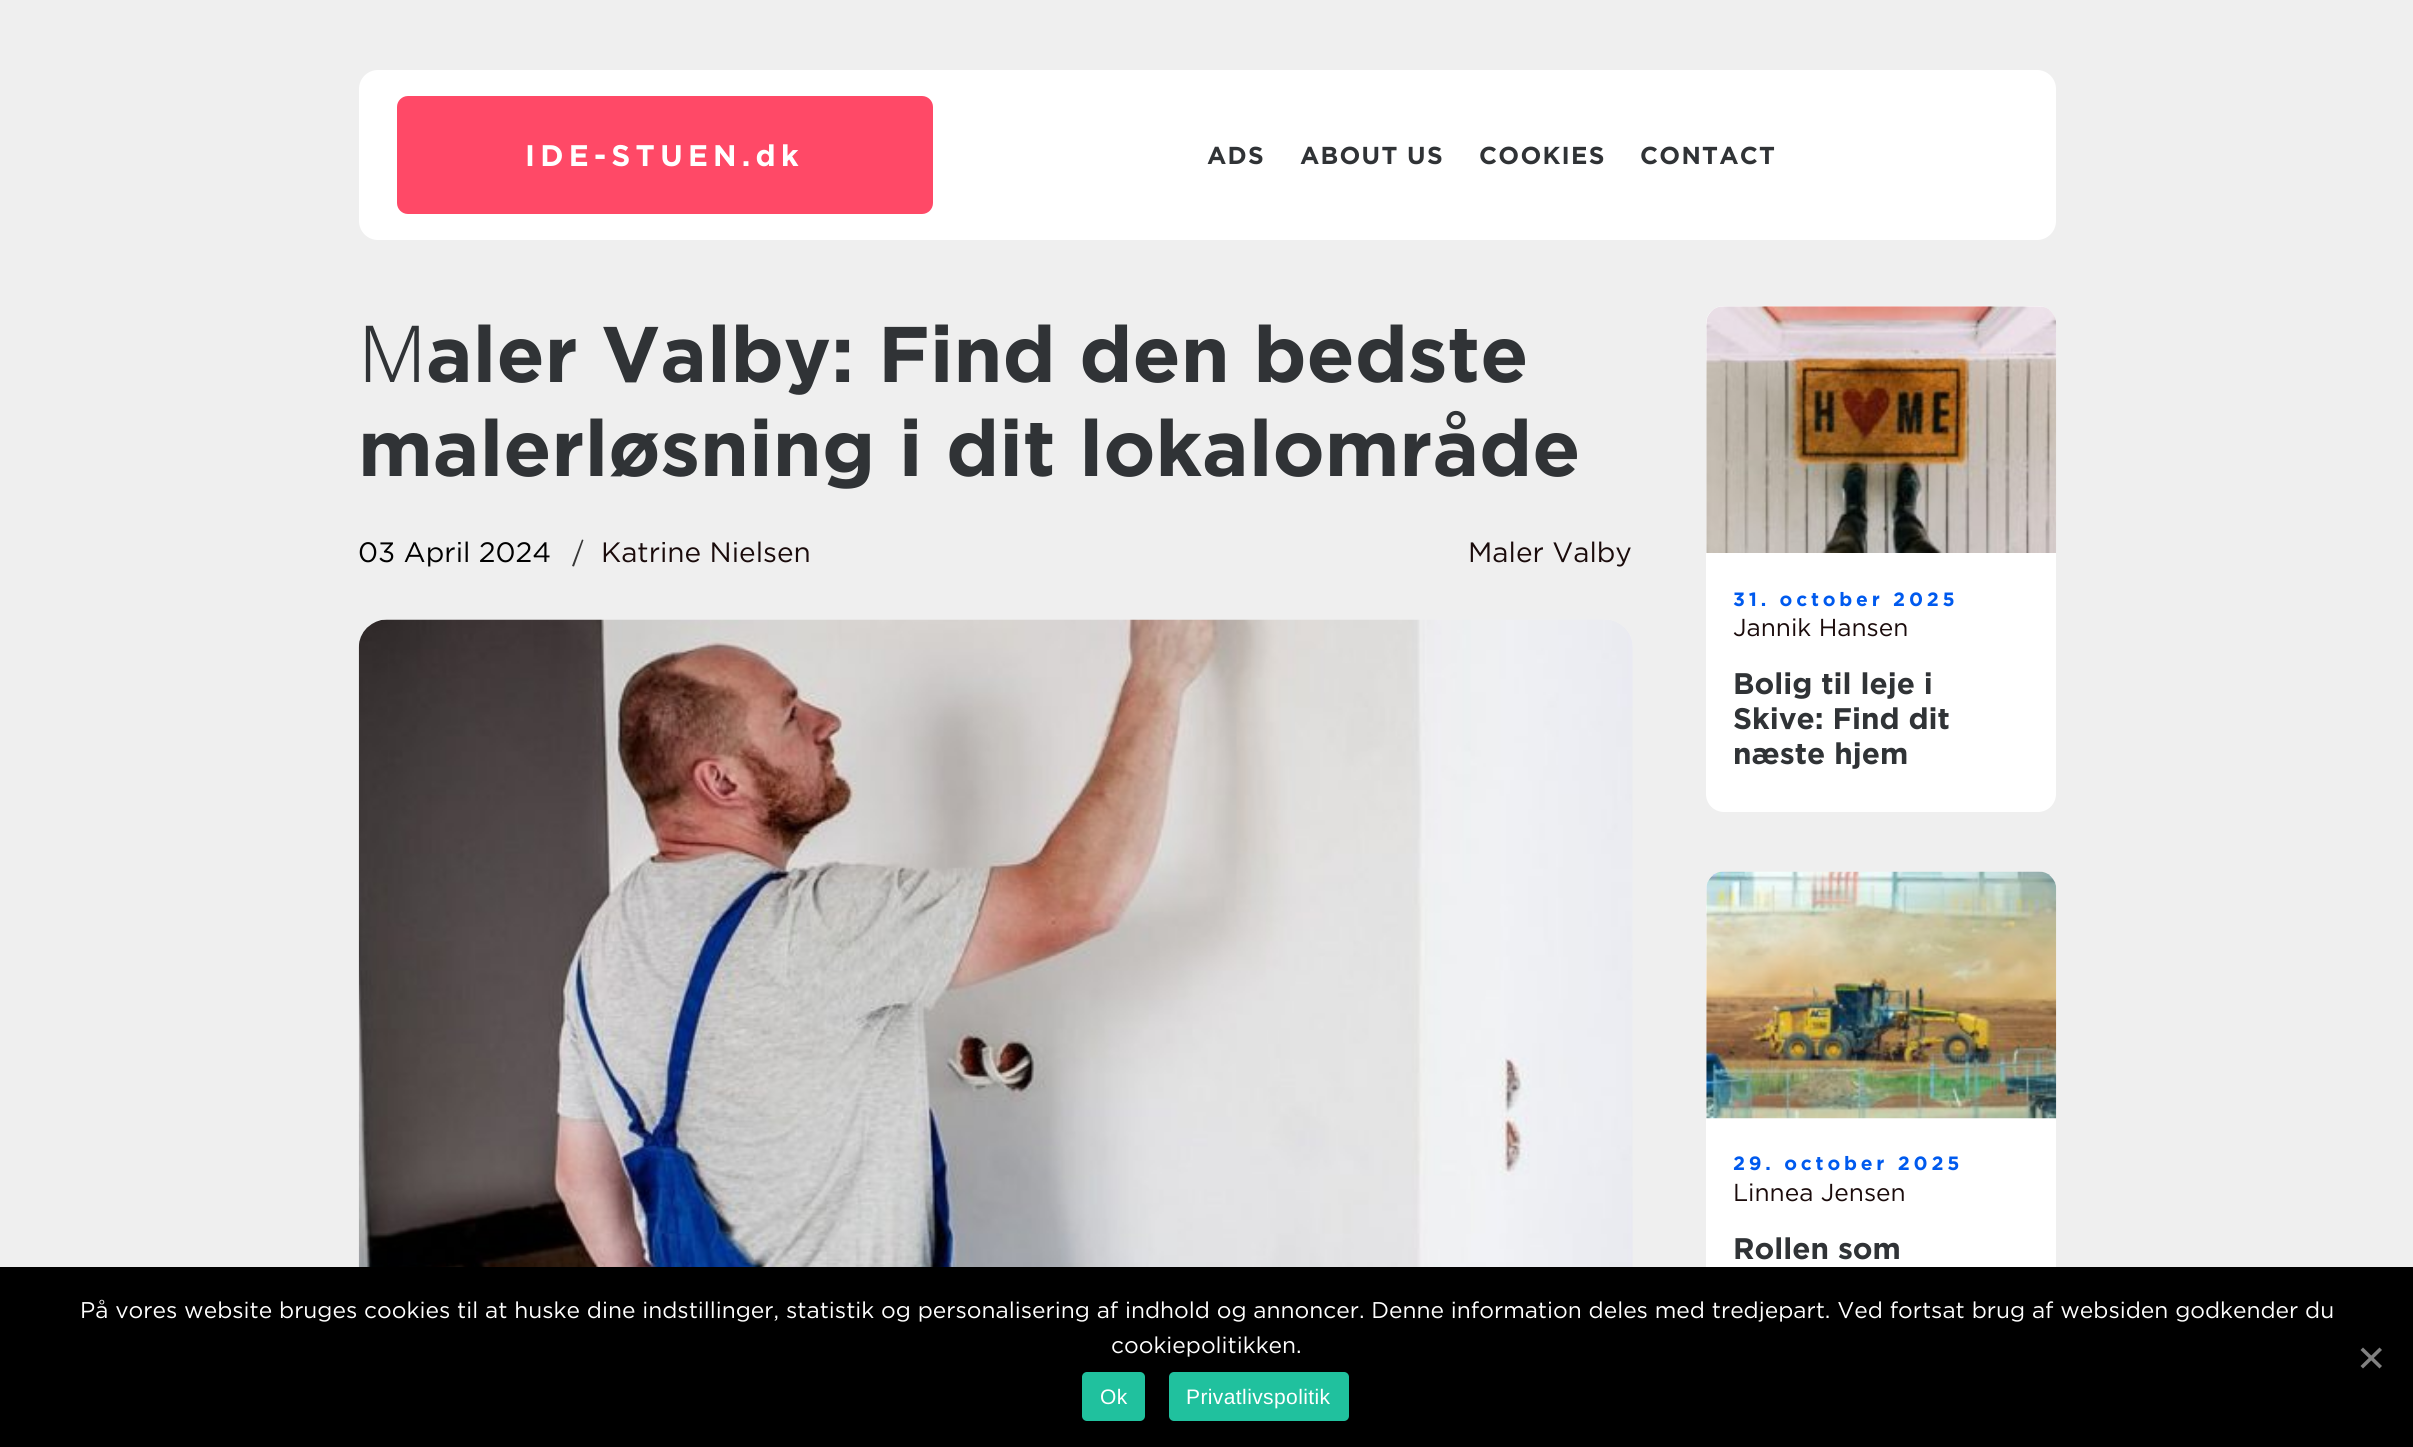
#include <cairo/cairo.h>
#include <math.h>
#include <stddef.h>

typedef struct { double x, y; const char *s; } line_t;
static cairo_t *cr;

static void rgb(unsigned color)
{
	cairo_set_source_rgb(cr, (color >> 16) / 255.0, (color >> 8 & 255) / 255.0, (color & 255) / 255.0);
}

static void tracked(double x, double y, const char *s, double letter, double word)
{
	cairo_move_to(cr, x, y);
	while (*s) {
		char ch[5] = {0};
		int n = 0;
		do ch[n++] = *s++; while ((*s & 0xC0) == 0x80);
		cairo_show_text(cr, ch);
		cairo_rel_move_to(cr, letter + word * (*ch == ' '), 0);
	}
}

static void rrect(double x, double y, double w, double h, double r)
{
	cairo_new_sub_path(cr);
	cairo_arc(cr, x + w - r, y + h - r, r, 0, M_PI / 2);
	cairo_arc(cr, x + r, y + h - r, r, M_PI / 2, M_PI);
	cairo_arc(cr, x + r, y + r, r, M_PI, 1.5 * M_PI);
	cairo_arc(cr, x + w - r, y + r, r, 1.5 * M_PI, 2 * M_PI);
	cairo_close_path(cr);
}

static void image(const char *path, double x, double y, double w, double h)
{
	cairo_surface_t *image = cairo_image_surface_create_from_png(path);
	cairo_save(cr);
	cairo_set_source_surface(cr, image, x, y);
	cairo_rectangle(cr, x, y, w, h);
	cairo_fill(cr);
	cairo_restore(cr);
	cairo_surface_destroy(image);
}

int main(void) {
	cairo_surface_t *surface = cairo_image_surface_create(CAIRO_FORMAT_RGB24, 2413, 1447);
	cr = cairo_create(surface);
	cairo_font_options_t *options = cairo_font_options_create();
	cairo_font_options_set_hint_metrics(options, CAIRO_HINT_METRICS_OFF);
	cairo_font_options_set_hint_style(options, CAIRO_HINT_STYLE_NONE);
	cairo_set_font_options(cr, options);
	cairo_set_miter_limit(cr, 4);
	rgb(0xefefef);
	cairo_paint(cr);
	rgb(0xffffff);
	rrect(359, 70, 1697, 170, 19);
	cairo_fill(cr);
	rgb(0xff4967);
	rrect(397, 96, 536, 118, 11);
	cairo_fill(cr);
	rgb(0x373737);
	cairo_new_path(cr);
	cairo_move_to(cr, 582, 539.5);
	cairo_line_to(cr, 583.5, 540);
	cairo_line_to(cr, 574, 566.5);
	cairo_line_to(cr, 572, 566);
	cairo_close_path(cr);
	cairo_fill(cr);
	image("img/1.png", 358, 619, 1275, 648);
	rgb(0xffffff);
	rrect(1706, 306, 350, 506, 18);
	cairo_fill(cr);
	image("img/2.png", 1706, 306, 351, 247);
	rrect(1706, 872, 350, 504, 18);
	cairo_fill(cr);
	image("img/3.png", 1706, 871, 351, 248);
	rgb(0x000000);
	cairo_rectangle(cr, 0, 1267, 2413, 180);
	cairo_fill(cr);
	rgb(0x808080);
	cairo_new_path(cr);
	cairo_move_to(cr, 2379.5, 1347.5);
	cairo_line_to(cr, 2382, 1350);
	cairo_line_to(cr, 2363, 1368.5);
	cairo_line_to(cr, 2360.5, 1366);
	cairo_close_path(cr);
	cairo_fill(cr);
	cairo_new_path(cr);
	cairo_move_to(cr, 2360.5, 1350);
	cairo_line_to(cr, 2363, 1347.5);
	cairo_line_to(cr, 2382, 1366);
	cairo_line_to(cr, 2379.5, 1368.5);
	cairo_close_path(cr);
	cairo_fill(cr);
	rgb(0x20c19e);
	rrect(1082, 1372, 63, 49, 5);
	cairo_fill(cr);
	rrect(1169, 1372, 180, 49, 5);
	cairo_fill(cr);
	cairo_select_font_face(cr, "Gotham", CAIRO_FONT_SLANT_NORMAL, CAIRO_FONT_WEIGHT_BOLD);
	cairo_set_font_size(cr, 29.75);
	rgb(0xffffff);
	tracked(525, 166, "IDE-STUEN.dk", 5.25, 0);
	cairo_set_font_size(cr, 24.5);
	rgb(0x303336);
	{
		static const line_t items[] = {
			{1207, 164, "ADS"},
			{1300, 164, "ABOUT US"},
			{1479, 164, "COOKIES"},
			{1640, 164, "CONTACT"},
		};
		for (size_t i = 0; i < sizeof items / sizeof *items; i++) {
			tracked(items[i].x, items[i].y, items[i].s, 1.25, 0);
		}
	}
	cairo_select_font_face(cr, "Noto Sans Light", CAIRO_FONT_SLANT_NORMAL, CAIRO_FONT_WEIGHT_NORMAL);
	cairo_set_font_size(cr, 78.75);
	cairo_move_to(cr, 358, 382);
	cairo_show_text(cr, "M");
	cairo_select_font_face(cr, "Gotham", CAIRO_FONT_SLANT_NORMAL, CAIRO_FONT_WEIGHT_BOLD);
	cairo_move_to(cr, 426, 382);
	cairo_show_text(cr, "aler Valby: Find den bedste");
	cairo_move_to(cr, 358, 476);
	cairo_show_text(cr, "malerløsning i dit lokalområde");
	cairo_select_font_face(cr, "Gotham", CAIRO_FONT_SLANT_NORMAL, CAIRO_FONT_WEIGHT_NORMAL);
	cairo_set_font_size(cr, 28);
	rgb(0x000000);
	cairo_move_to(cr, 358, 562);
	cairo_show_text(cr, "03 April 2024");
	rgb(0x1a0b0b);
	cairo_move_to(cr, 601, 562);
	cairo_show_text(cr, "Katrine Nielsen");
	cairo_move_to(cr, 1468, 562);
	cairo_show_text(cr, "Maler Valby");
	cairo_select_font_face(cr, "Gotham", CAIRO_FONT_SLANT_NORMAL, CAIRO_FONT_WEIGHT_BOLD);
	cairo_set_font_size(cr, 19.25);
	rgb(0x005aee);
	tracked(1733, 606, "31. october 2025", 3.8, 0);
	cairo_select_font_face(cr, "Gotham", CAIRO_FONT_SLANT_NORMAL, CAIRO_FONT_WEIGHT_NORMAL);
	cairo_set_font_size(cr, 24.5);
	rgb(0x1a0b0b);
	cairo_move_to(cr, 1733, 636);
	cairo_show_text(cr, "Jannik Hansen");
	cairo_select_font_face(cr, "Gotham", CAIRO_FONT_SLANT_NORMAL, CAIRO_FONT_WEIGHT_BOLD);
	cairo_set_font_size(cr, 29.75);
	rgb(0x303336);
	{
		static const line_t items[] = {
			{1733, 694, "Bolig til leje i"},
			{1733, 729, "Skive: Find dit"},
			{1733, 764, "næste hjem"},
		};
		for (size_t i = 0; i < sizeof items / sizeof *items; i++) {
			cairo_move_to(cr, items[i].x, items[i].y);
			cairo_show_text(cr, items[i].s);
		}
	}
	cairo_set_font_size(cr, 19.25);
	rgb(0x005aee);
	tracked(1733, 1170, "29. october 2025", 3.8, 0);
	cairo_select_font_face(cr, "Gotham", CAIRO_FONT_SLANT_NORMAL, CAIRO_FONT_WEIGHT_NORMAL);
	cairo_set_font_size(cr, 24.5);
	rgb(0x1a0b0b);
	cairo_move_to(cr, 1733, 1201);
	cairo_show_text(cr, "Linnea Jensen");
	cairo_select_font_face(cr, "Gotham", CAIRO_FONT_SLANT_NORMAL, CAIRO_FONT_WEIGHT_BOLD);
	cairo_set_font_size(cr, 29.75);
	rgb(0x303336);
	cairo_move_to(cr, 1733, 1259);
	cairo_show_text(cr, "Rollen som");
	cairo_select_font_face(cr, "Gotham", CAIRO_FONT_SLANT_NORMAL, CAIRO_FONT_WEIGHT_NORMAL);
	cairo_set_font_size(cr, 22.75);
	rgb(0xffffff);
	cairo_move_to(cr, 80, 1318);
	cairo_show_text(cr, "På vores website bruges cookies til at huske dine indstillinger, statistik og personalisering af indhold og annoncer. Denne information deles med tredjepart. Ved fortsat brug af websiden godkender du");
	cairo_move_to(cr, 1111, 1353);
	cairo_show_text(cr, "cookiepolitikken.");
	cairo_select_font_face(cr, "Liberation Sans", CAIRO_FONT_SLANT_NORMAL, CAIRO_FONT_WEIGHT_NORMAL);
	cairo_set_font_size(cr, 21);
	tracked(1100, 1404, "Ok", 0.4, 0);
	tracked(1186, 1404, "Privatlivspolitik", 0.4, 0);
	cairo_surface_write_to_png(surface, "page.png");
	cairo_font_options_destroy(options);
	cairo_destroy(cr);
	cairo_surface_destroy(surface);
	return 0;
}
